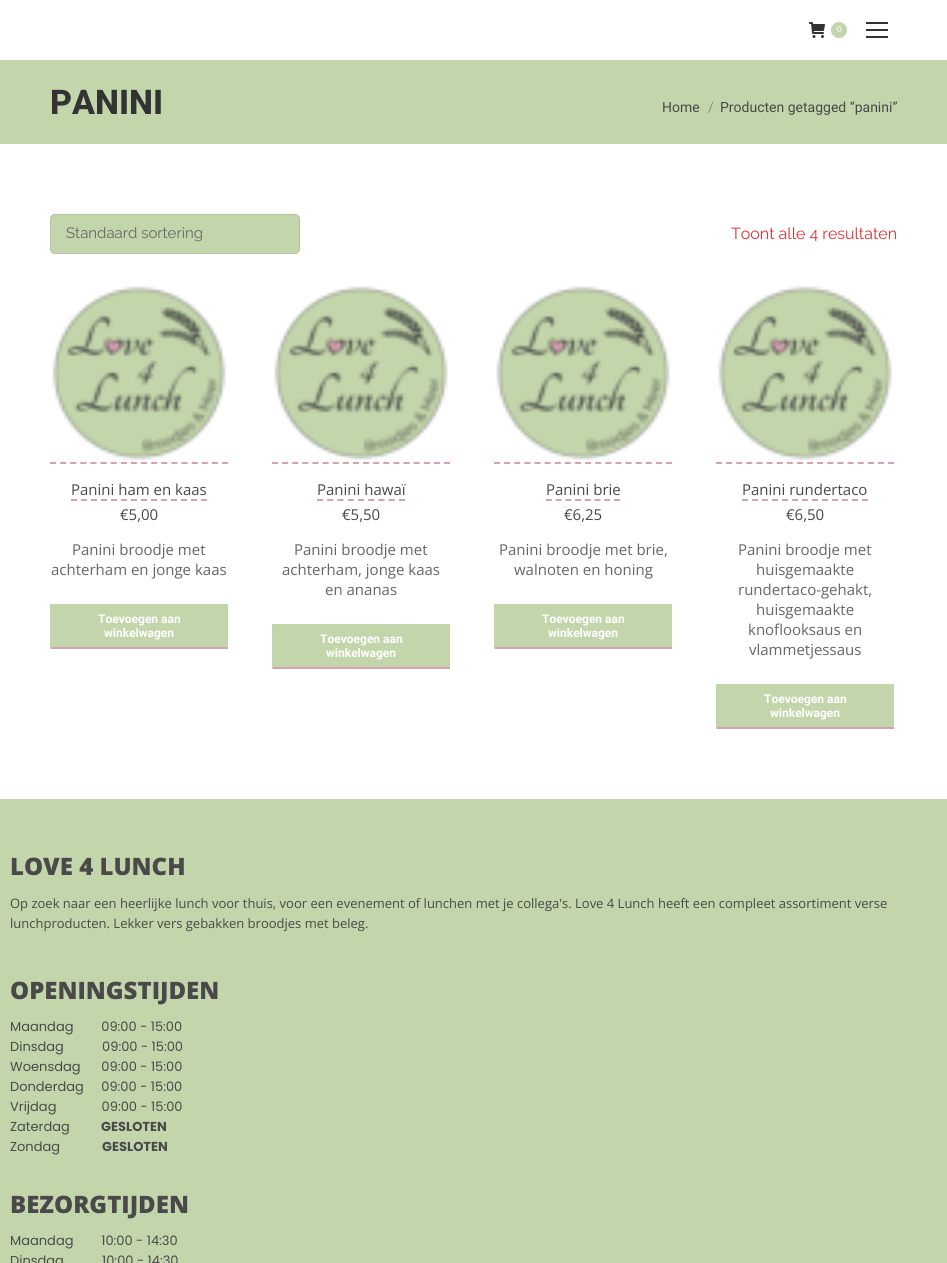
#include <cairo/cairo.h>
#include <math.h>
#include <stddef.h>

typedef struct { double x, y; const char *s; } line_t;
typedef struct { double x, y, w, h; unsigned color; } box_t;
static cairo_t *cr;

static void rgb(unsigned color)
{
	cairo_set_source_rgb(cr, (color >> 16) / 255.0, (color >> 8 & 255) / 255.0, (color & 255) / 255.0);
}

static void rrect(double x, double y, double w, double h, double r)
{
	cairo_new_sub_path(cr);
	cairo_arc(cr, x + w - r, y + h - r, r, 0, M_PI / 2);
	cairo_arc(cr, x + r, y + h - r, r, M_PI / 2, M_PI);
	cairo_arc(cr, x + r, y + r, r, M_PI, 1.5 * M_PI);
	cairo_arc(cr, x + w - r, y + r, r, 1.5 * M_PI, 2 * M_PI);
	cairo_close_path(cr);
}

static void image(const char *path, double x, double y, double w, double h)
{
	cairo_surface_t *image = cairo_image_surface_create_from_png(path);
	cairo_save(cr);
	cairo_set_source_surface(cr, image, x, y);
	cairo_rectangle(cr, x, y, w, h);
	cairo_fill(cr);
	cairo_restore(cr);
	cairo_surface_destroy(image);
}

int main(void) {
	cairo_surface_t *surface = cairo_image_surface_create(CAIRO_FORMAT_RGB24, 947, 1263);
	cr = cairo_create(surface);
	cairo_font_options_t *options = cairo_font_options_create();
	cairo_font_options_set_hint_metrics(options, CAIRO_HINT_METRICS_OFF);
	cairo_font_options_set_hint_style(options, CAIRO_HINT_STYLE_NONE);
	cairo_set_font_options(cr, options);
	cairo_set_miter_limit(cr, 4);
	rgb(0xffffff);
	cairo_paint(cr);
	image("img/1.png", 809, 22, 16, 16);
	rgb(0xc3d6ab);
	cairo_arc(cr, 839, 30, 8, 0, 2 * M_PI);
	cairo_fill(cr);
	{
		static const box_t items[] = {
			{866, 22, 22, 2, 0x333333},
			{866, 29, 22, 2, 0x333333},
			{866, 36, 22, 2, 0x333333},
			{0, 60, 947, 84, 0xc3d6ab},
		};
		for (size_t i = 0; i < sizeof items / sizeof *items; i++) {
			rgb(items[i].color);
			cairo_rectangle(cr, items[i].x, items[i].y, items[i].w, items[i].h);
			cairo_fill(cr);
		}
	}
	rrect(50, 214, 250, 40, 5);
	cairo_fill(cr);
	rrect(50.5, 214.5, 249, 39, 4.5);
	cairo_set_source_rgba(cr, 0.2, 0.2, 0.2, 0.11);
	cairo_set_line_width(cr, 1);
	cairo_stroke(cr);
	cairo_new_path(cr);
	cairo_move_to(cr, 50, 463);
	cairo_line_to(cr, 228, 463);
	rgb(0xd6a1b0);
	cairo_set_line_width(cr, 2);
	cairo_set_dash(cr, (double[]){6, 4.12}, 2, 0);
	cairo_stroke(cr);
	image("img/2.png", 52, 286, 174, 174);
	cairo_new_path(cr);
	cairo_move_to(cr, 71, 500);
	cairo_line_to(cr, 207, 500);
	cairo_set_dash(cr, (double[]){6, 4}, 2, 0);
	cairo_stroke(cr);
	rgb(0xc3d6ab);
	rrect(50, 604, 178, 45, 1);
	cairo_fill(cr);
	rgb(0xd6a1b0);
	cairo_rectangle(cr, 51, 647, 177, 2);
	cairo_fill(cr);
	cairo_new_path(cr);
	cairo_move_to(cr, 272, 463);
	cairo_line_to(cr, 450, 463);
	cairo_set_dash(cr, (double[]){6, 4.12}, 2, 0);
	cairo_stroke(cr);
	image("img/3.png", 274, 286, 174, 174);
	cairo_new_path(cr);
	cairo_move_to(cr, 317, 500);
	cairo_line_to(cr, 405, 500);
	cairo_set_dash(cr, (double[]){6, 4.25}, 2, 0);
	cairo_stroke(cr);
	rgb(0xc3d6ab);
	rrect(272, 624, 178, 45, 1);
	cairo_fill(cr);
	rgb(0xd6a1b0);
	cairo_rectangle(cr, 273, 667, 177, 2);
	cairo_fill(cr);
	cairo_new_path(cr);
	cairo_move_to(cr, 494, 463);
	cairo_line_to(cr, 672, 463);
	cairo_set_dash(cr, (double[]){6, 4.12}, 2, 0);
	cairo_stroke(cr);
	image("img/4.png", 496, 286, 174, 174);
	cairo_new_path(cr);
	cairo_move_to(cr, 546, 500);
	cairo_line_to(cr, 620, 500);
	cairo_set_dash(cr, (double[]){6, 3.71}, 2, 0);
	cairo_stroke(cr);
	rgb(0xc3d6ab);
	rrect(494, 604, 178, 45, 1);
	cairo_fill(cr);
	rgb(0xd6a1b0);
	cairo_rectangle(cr, 495, 647, 177, 2);
	cairo_fill(cr);
	cairo_new_path(cr);
	cairo_move_to(cr, 716, 463);
	cairo_line_to(cr, 894, 463);
	cairo_set_dash(cr, (double[]){6, 4.12}, 2, 0);
	cairo_stroke(cr);
	image("img/4.png", 718, 286, 174, 174);
	cairo_new_path(cr);
	cairo_move_to(cr, 742, 500);
	cairo_line_to(cr, 868, 500);
	cairo_set_dash(cr, (double[]){6, 4}, 2, 0);
	cairo_stroke(cr);
	rgb(0xc3d6ab);
	rrect(716, 684, 178, 45, 1);
	cairo_fill(cr);
	rgb(0xd6a1b0);
	cairo_rectangle(cr, 717, 727, 177, 2);
	cairo_fill(cr);
	rgb(0xc3d6ab);
	cairo_rectangle(cr, 0, 799, 947, 464);
	cairo_fill(cr);
	cairo_select_font_face(cr, "Liberation Sans", CAIRO_FONT_SLANT_NORMAL, CAIRO_FONT_WEIGHT_NORMAL);
	cairo_set_font_size(cr, 8);
	rgb(0xffffff);
	cairo_move_to(cr, 837, 32);
	cairo_show_text(cr, "0");
	cairo_select_font_face(cr, "Roboto ExtraBold", CAIRO_FONT_SLANT_NORMAL, CAIRO_FONT_WEIGHT_NORMAL);
	cairo_set_font_size(cr, 34);
	rgb(0x333333);
	cairo_move_to(cr, 50, 114);
	cairo_show_text(cr, "PANINI");
	cairo_select_font_face(cr, "Roboto", CAIRO_FONT_SLANT_NORMAL, CAIRO_FONT_WEIGHT_NORMAL);
	cairo_set_font_size(cr, 14);
	rgb(0x494949);
	cairo_move_to(cr, 662, 112);
	cairo_show_text(cr, "Home");
	rgb(0x86907a);
	cairo_move_to(cr, 708, 112);
	cairo_show_text(cr, "/");
	rgb(0x494949);
	cairo_move_to(cr, 720, 112);
	cairo_show_text(cr, "Producten getagged “panini”");
	cairo_select_font_face(cr, "Raleway", CAIRO_FONT_SLANT_NORMAL, CAIRO_FONT_WEIGHT_NORMAL);
	cairo_set_font_size(cr, 15);
	rgb(0x666666);
	cairo_move_to(cr, 66, 238);
	cairo_show_text(cr, "Standaard sortering");
	cairo_set_font_size(cr, 16);
	rgb(0xdd3333);
	cairo_move_to(cr, 731, 239);
	cairo_show_text(cr, "Toont alle 4 resultaten");
	cairo_select_font_face(cr, "Open Sans", CAIRO_FONT_SLANT_NORMAL, CAIRO_FONT_WEIGHT_NORMAL);
	cairo_set_font_size(cr, 15);
	rgb(0x494949);
	cairo_move_to(cr, 71, 495);
	cairo_show_text(cr, "Panini ham en kaas");
	cairo_move_to(cr, 120, 520);
	cairo_show_text(cr, "€5,00");
	rgb(0x666666);
	cairo_move_to(cr, 72, 555);
	cairo_show_text(cr, "Panini broodje met");
	cairo_move_to(cr, 51, 575);
	cairo_show_text(cr, "achterham en jonge kaas");
	cairo_select_font_face(cr, "Roboto", CAIRO_FONT_SLANT_NORMAL, CAIRO_FONT_WEIGHT_BOLD);
	cairo_set_font_size(cr, 12);
	rgb(0xffffff);
	cairo_move_to(cr, 98, 623);
	cairo_show_text(cr, "Toevoegen aan");
	cairo_move_to(cr, 104, 637);
	cairo_show_text(cr, "winkelwagen");
	cairo_select_font_face(cr, "Open Sans", CAIRO_FONT_SLANT_NORMAL, CAIRO_FONT_WEIGHT_NORMAL);
	cairo_set_font_size(cr, 15);
	rgb(0x494949);
	cairo_move_to(cr, 317, 495);
	cairo_show_text(cr, "Panini hawaï");
	cairo_move_to(cr, 342, 520);
	cairo_show_text(cr, "€5,50");
	rgb(0x666666);
	{
		static const line_t items[] = {
			{294, 555, "Panini broodje met"},
			{282, 575, "achterham, jonge kaas"},
			{325, 595, "en ananas"},
		};
		for (size_t i = 0; i < sizeof items / sizeof *items; i++) {
			cairo_move_to(cr, items[i].x, items[i].y);
			cairo_show_text(cr, items[i].s);
		}
	}
	cairo_select_font_face(cr, "Roboto", CAIRO_FONT_SLANT_NORMAL, CAIRO_FONT_WEIGHT_BOLD);
	cairo_set_font_size(cr, 12);
	rgb(0xffffff);
	cairo_move_to(cr, 320, 643);
	cairo_show_text(cr, "Toevoegen aan");
	cairo_move_to(cr, 326, 657);
	cairo_show_text(cr, "winkelwagen");
	cairo_select_font_face(cr, "Open Sans", CAIRO_FONT_SLANT_NORMAL, CAIRO_FONT_WEIGHT_NORMAL);
	cairo_set_font_size(cr, 15);
	rgb(0x494949);
	cairo_move_to(cr, 546, 495);
	cairo_show_text(cr, "Panini brie");
	cairo_move_to(cr, 564, 520);
	cairo_show_text(cr, "€6,25");
	rgb(0x666666);
	cairo_move_to(cr, 499, 555);
	cairo_show_text(cr, "Panini broodje met brie,");
	cairo_move_to(cr, 514, 575);
	cairo_show_text(cr, "walnoten en honing");
	cairo_select_font_face(cr, "Roboto", CAIRO_FONT_SLANT_NORMAL, CAIRO_FONT_WEIGHT_BOLD);
	cairo_set_font_size(cr, 12);
	rgb(0xffffff);
	cairo_move_to(cr, 542, 623);
	cairo_show_text(cr, "Toevoegen aan");
	cairo_move_to(cr, 548, 637);
	cairo_show_text(cr, "winkelwagen");
	cairo_select_font_face(cr, "Open Sans", CAIRO_FONT_SLANT_NORMAL, CAIRO_FONT_WEIGHT_NORMAL);
	cairo_set_font_size(cr, 15);
	rgb(0x494949);
	cairo_move_to(cr, 742, 495);
	cairo_show_text(cr, "Panini rundertaco");
	cairo_move_to(cr, 786, 520);
	cairo_show_text(cr, "€6,50");
	rgb(0x666666);
	{
		static const line_t items[] = {
			{738, 555, "Panini broodje met"},
			{756, 575, "huisgemaakte"},
			{738, 595, "rundertaco-gehakt,"},
			{756, 615, "huisgemaakte"},
			{748, 635, "knoflooksaus en"},
			{749, 655, "vlammetjessaus"},
		};
		for (size_t i = 0; i < sizeof items / sizeof *items; i++) {
			cairo_move_to(cr, items[i].x, items[i].y);
			cairo_show_text(cr, items[i].s);
		}
	}
	cairo_select_font_face(cr, "Roboto", CAIRO_FONT_SLANT_NORMAL, CAIRO_FONT_WEIGHT_BOLD);
	cairo_set_font_size(cr, 12);
	rgb(0xffffff);
	cairo_move_to(cr, 764, 703);
	cairo_show_text(cr, "Toevoegen aan");
	cairo_move_to(cr, 770, 717);
	cairo_show_text(cr, "winkelwagen");
	cairo_select_font_face(cr, "Open Sans ExtraBold", CAIRO_FONT_SLANT_NORMAL, CAIRO_FONT_WEIGHT_NORMAL);
	cairo_set_font_size(cr, 24);
	rgb(0x494949);
	cairo_move_to(cr, 10, 875);
	cairo_show_text(cr, "LOVE 4 LUNCH");
	cairo_select_font_face(cr, "Open Sans", CAIRO_FONT_SLANT_NORMAL, CAIRO_FONT_WEIGHT_NORMAL);
	cairo_set_font_size(cr, 13);
	cairo_move_to(cr, 10, 908);
	cairo_show_text(cr, "Op zoek naar een heerlijke lunch voor thuis, voor een evenement of lunchen met je collega's. Love 4 Lunch heeft een compleet assortiment verse");
	cairo_move_to(cr, 10, 928);
	cairo_show_text(cr, "lunchproducten. Lekker vers gebakken broodjes met beleg.");
	cairo_select_font_face(cr, "Open Sans ExtraBold", CAIRO_FONT_SLANT_NORMAL, CAIRO_FONT_WEIGHT_NORMAL);
	cairo_set_font_size(cr, 24);
	cairo_move_to(cr, 10, 999);
	cairo_show_text(cr, "OPENINGSTIJDEN");
	cairo_select_font_face(cr, "Poppins", CAIRO_FONT_SLANT_NORMAL, CAIRO_FONT_WEIGHT_NORMAL);
	cairo_set_font_size(cr, 13);
	{
		static const line_t items[] = {
			{10, 1031, "Maandag        09:00 - 15:00"},
			{10, 1051, "Dinsdag           09:00 - 15:00"},
			{10, 1071, "Woensdag      09:00 - 15:00"},
			{10, 1091, "Donderdag     09:00 - 15:00"},
			{10, 1111, "Vrijdag             09:00 - 15:00"},
			{10, 1131, "Zaterdag"},
		};
		for (size_t i = 0; i < sizeof items / sizeof *items; i++) {
			cairo_move_to(cr, items[i].x, items[i].y);
			cairo_show_text(cr, items[i].s);
		}
	}
	cairo_select_font_face(cr, "Poppins", CAIRO_FONT_SLANT_NORMAL, CAIRO_FONT_WEIGHT_BOLD);
	cairo_move_to(cr, 101, 1131);
	cairo_show_text(cr, "GESLOTEN");
	cairo_select_font_face(cr, "Poppins", CAIRO_FONT_SLANT_NORMAL, CAIRO_FONT_WEIGHT_NORMAL);
	cairo_move_to(cr, 10, 1151);
	cairo_show_text(cr, "Zondag");
	cairo_select_font_face(cr, "Poppins", CAIRO_FONT_SLANT_NORMAL, CAIRO_FONT_WEIGHT_BOLD);
	cairo_move_to(cr, 102, 1151);
	cairo_show_text(cr, "GESLOTEN");
	cairo_select_font_face(cr, "Open Sans ExtraBold", CAIRO_FONT_SLANT_NORMAL, CAIRO_FONT_WEIGHT_NORMAL);
	cairo_set_font_size(cr, 24);
	cairo_move_to(cr, 10, 1213);
	cairo_show_text(cr, "BEZORGTIJDEN");
	cairo_select_font_face(cr, "Poppins", CAIRO_FONT_SLANT_NORMAL, CAIRO_FONT_WEIGHT_NORMAL);
	cairo_set_font_size(cr, 13);
	cairo_move_to(cr, 10, 1245);
	cairo_show_text(cr, "Maandag        10:00 - 14:30");
	cairo_move_to(cr, 10, 1265);
	cairo_show_text(cr, "Dinsdag           10:00 - 14:30");
	cairo_surface_write_to_png(surface, "page.png");
	cairo_font_options_destroy(options);
	cairo_destroy(cr);
	cairo_surface_destroy(surface);
	return 0;
}
